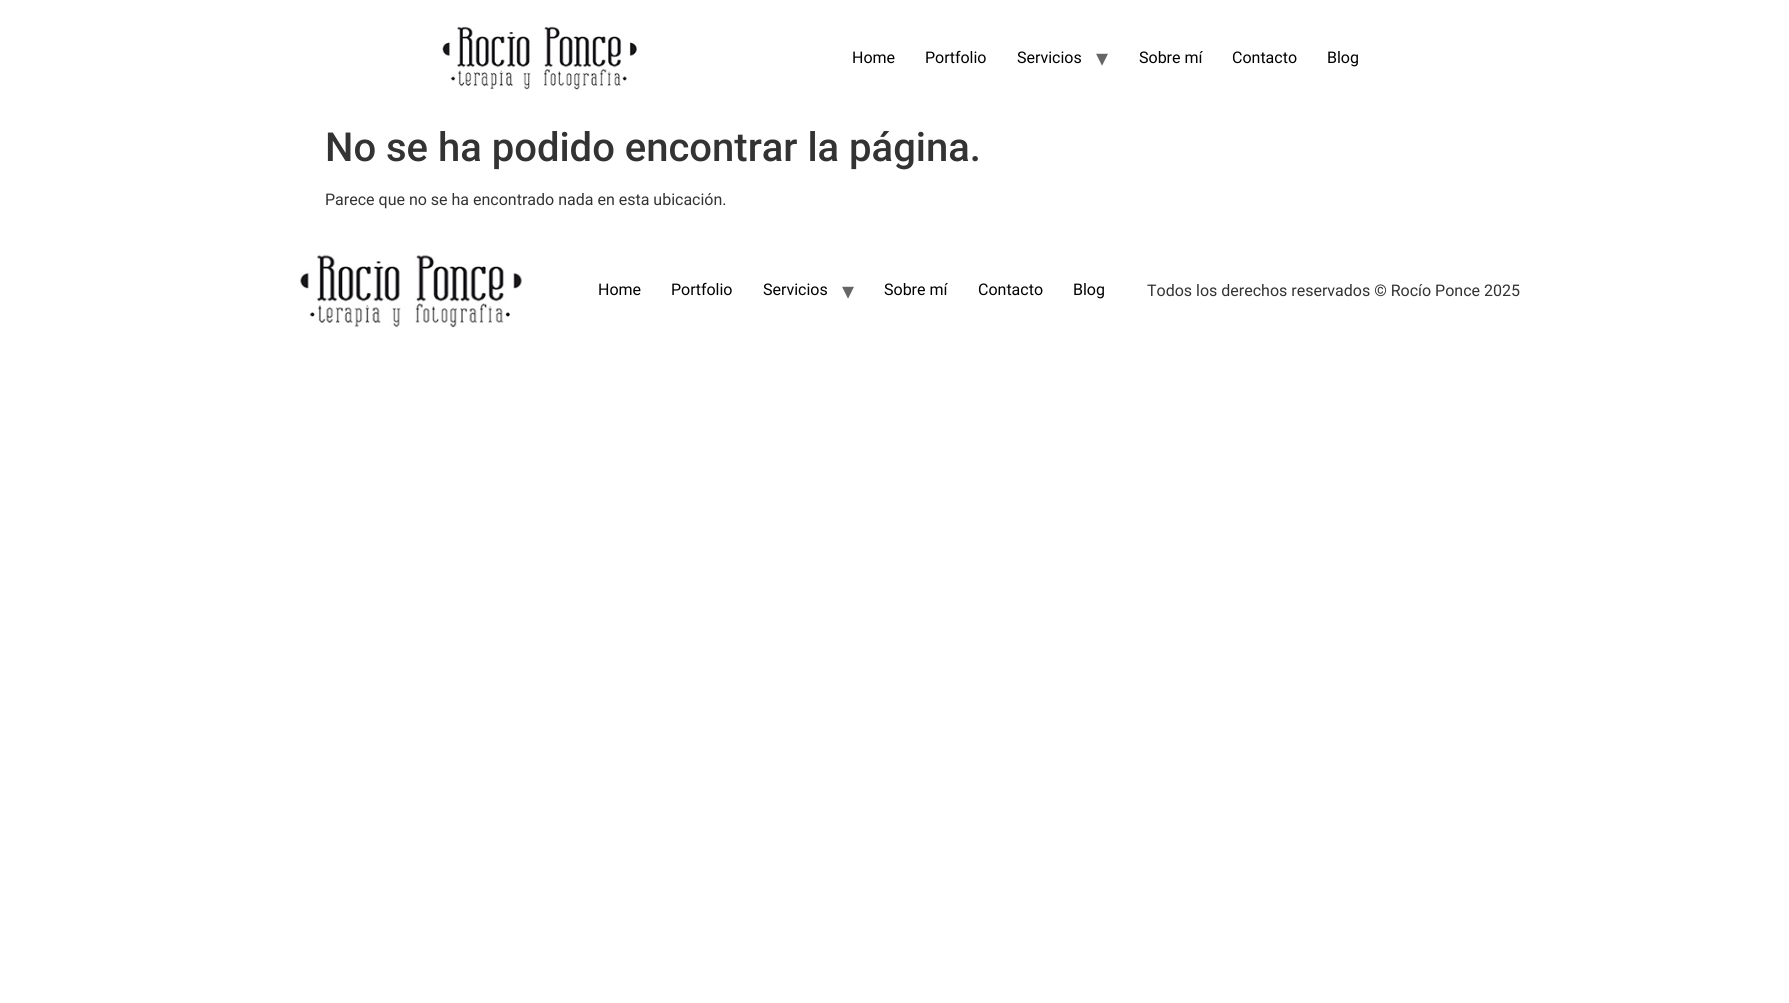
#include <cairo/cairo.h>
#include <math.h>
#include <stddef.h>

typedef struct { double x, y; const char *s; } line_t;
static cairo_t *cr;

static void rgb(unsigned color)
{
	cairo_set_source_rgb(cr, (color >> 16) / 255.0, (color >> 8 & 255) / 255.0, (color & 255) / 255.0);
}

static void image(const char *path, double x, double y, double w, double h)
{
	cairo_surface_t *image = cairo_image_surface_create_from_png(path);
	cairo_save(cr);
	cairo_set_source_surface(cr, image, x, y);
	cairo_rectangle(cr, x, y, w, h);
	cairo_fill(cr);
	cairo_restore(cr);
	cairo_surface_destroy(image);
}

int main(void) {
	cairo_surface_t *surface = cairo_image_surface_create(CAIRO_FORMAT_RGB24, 1789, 1003);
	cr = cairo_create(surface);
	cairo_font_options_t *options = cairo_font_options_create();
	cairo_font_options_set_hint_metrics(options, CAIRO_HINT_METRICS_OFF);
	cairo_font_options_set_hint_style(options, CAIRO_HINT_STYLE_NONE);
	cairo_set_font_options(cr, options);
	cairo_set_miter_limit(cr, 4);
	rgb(0xffffff);
	cairo_paint(cr);
	image("img/1.png", 442, 26, 195, 64);
	image("img/2.png", 299, 254, 223, 74);
	cairo_select_font_face(cr, "Roboto", CAIRO_FONT_SLANT_NORMAL, CAIRO_FONT_WEIGHT_NORMAL);
	cairo_set_font_size(cr, 16);
	rgb(0x000000);
	{
		static const line_t items[] = {
			{852, 63, "Home"},
			{925, 63, "Portfolio"},
			{1017, 63, "Servicios"},
		};
		for (size_t i = 0; i < sizeof items / sizeof *items; i++) {
			cairo_move_to(cr, items[i].x, items[i].y);
			cairo_show_text(cr, items[i].s);
		}
	}
	cairo_select_font_face(cr, "DejaVu Sans", CAIRO_FONT_SLANT_NORMAL, CAIRO_FONT_WEIGHT_NORMAL);
	cairo_set_font_size(cr, 24);
	rgb(0x666666);
	cairo_move_to(cr, 1096, 66);
	cairo_show_text(cr, "▾");
	cairo_select_font_face(cr, "Roboto", CAIRO_FONT_SLANT_NORMAL, CAIRO_FONT_WEIGHT_NORMAL);
	cairo_set_font_size(cr, 16);
	rgb(0x000000);
	{
		static const line_t items[] = {
			{1139, 63, "Sobre mí"},
			{1232, 63, "Contacto"},
			{1327, 63, "Blog"},
		};
		for (size_t i = 0; i < sizeof items / sizeof *items; i++) {
			cairo_move_to(cr, items[i].x, items[i].y);
			cairo_show_text(cr, items[i].s);
		}
	}
	cairo_select_font_face(cr, "Roboto Medium", CAIRO_FONT_SLANT_NORMAL, CAIRO_FONT_WEIGHT_NORMAL);
	cairo_set_font_size(cr, 40);
	rgb(0x333333);
	cairo_move_to(cr, 325, 161);
	cairo_show_text(cr, "No se ha podido encontrar la página.");
	cairo_select_font_face(cr, "Roboto", CAIRO_FONT_SLANT_NORMAL, CAIRO_FONT_WEIGHT_NORMAL);
	cairo_set_font_size(cr, 16);
	cairo_move_to(cr, 325, 205);
	cairo_show_text(cr, "Parece que no se ha encontrado nada en esta ubicación.");
	rgb(0x000000);
	{
		static const line_t items[] = {
			{598, 295, "Home"},
			{671, 295, "Portfolio"},
			{763, 295, "Servicios"},
		};
		for (size_t i = 0; i < sizeof items / sizeof *items; i++) {
			cairo_move_to(cr, items[i].x, items[i].y);
			cairo_show_text(cr, items[i].s);
		}
	}
	cairo_select_font_face(cr, "DejaVu Sans", CAIRO_FONT_SLANT_NORMAL, CAIRO_FONT_WEIGHT_NORMAL);
	cairo_set_font_size(cr, 24);
	rgb(0x666666);
	cairo_move_to(cr, 842, 299);
	cairo_show_text(cr, "▾");
	cairo_select_font_face(cr, "Roboto", CAIRO_FONT_SLANT_NORMAL, CAIRO_FONT_WEIGHT_NORMAL);
	cairo_set_font_size(cr, 16);
	rgb(0x000000);
	{
		static const line_t items[] = {
			{884, 295, "Sobre mí"},
			{978, 295, "Contacto"},
			{1073, 295, "Blog"},
		};
		for (size_t i = 0; i < sizeof items / sizeof *items; i++) {
			cairo_move_to(cr, items[i].x, items[i].y);
			cairo_show_text(cr, items[i].s);
		}
	}
	rgb(0x333333);
	cairo_move_to(cr, 1147, 296);
	cairo_show_text(cr, "Todos los derechos reservados © Rocío Ponce 2025");
	cairo_surface_write_to_png(surface, "page.png");
	cairo_font_options_destroy(options);
	cairo_destroy(cr);
	cairo_surface_destroy(surface);
	return 0;
}
